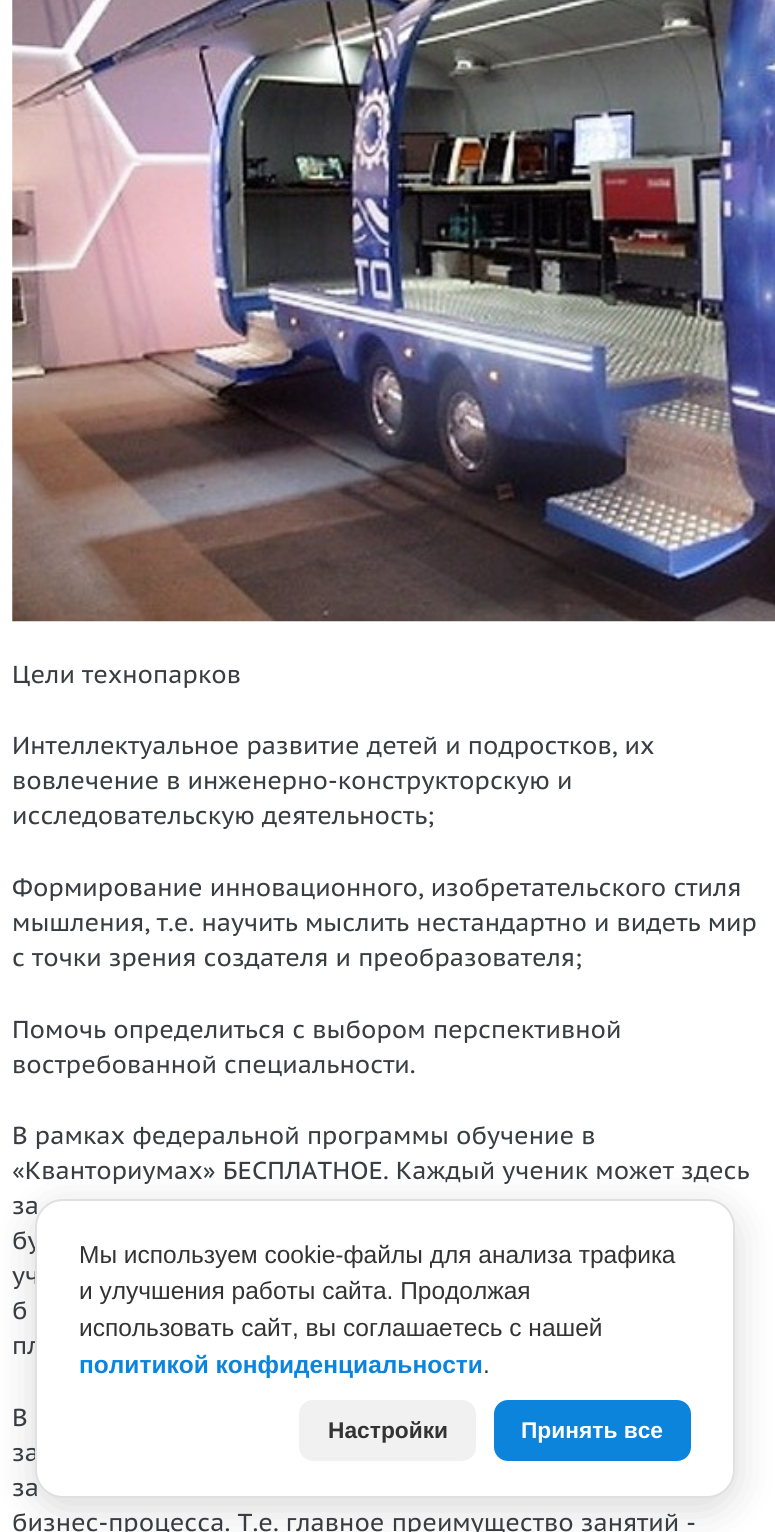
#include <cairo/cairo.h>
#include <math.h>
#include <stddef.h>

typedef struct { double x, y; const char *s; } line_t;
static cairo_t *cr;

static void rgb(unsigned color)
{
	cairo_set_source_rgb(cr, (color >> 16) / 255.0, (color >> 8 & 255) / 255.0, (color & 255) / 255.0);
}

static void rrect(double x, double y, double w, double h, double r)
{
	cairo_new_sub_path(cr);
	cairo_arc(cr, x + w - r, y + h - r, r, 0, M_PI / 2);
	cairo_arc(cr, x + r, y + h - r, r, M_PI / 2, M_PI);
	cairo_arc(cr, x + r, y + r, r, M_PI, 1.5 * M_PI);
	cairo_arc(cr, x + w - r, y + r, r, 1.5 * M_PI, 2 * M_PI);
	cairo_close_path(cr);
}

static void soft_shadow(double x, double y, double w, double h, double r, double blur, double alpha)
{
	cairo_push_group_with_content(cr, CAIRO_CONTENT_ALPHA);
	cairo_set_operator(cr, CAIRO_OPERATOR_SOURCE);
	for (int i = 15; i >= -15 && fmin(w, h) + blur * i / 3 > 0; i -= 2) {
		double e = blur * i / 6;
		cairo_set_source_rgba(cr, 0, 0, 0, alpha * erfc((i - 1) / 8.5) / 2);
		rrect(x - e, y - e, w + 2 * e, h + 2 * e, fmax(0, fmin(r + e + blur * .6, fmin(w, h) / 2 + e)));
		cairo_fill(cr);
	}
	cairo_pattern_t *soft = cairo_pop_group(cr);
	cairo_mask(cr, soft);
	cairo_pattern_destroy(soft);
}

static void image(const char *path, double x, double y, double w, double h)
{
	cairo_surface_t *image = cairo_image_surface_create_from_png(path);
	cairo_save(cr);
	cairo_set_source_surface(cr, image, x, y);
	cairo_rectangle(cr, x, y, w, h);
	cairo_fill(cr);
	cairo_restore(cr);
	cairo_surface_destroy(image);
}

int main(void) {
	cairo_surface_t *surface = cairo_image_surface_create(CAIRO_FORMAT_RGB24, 775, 1532);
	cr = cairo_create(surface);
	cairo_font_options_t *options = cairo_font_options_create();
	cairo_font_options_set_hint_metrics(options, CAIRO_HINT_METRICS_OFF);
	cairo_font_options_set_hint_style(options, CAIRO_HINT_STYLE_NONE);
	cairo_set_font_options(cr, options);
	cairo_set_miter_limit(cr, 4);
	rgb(0xffffff);
	cairo_paint(cr);
	image("img/1.png", 12, 0, 763, 622);
	rgb(0x000000);
	soft_shadow(35, 1209, 700, 300, 28, 21, 0.15);
	cairo_select_font_face(cr, "PT Sans Caption", CAIRO_FONT_SLANT_NORMAL, CAIRO_FONT_WEIGHT_NORMAL);
	cairo_set_font_size(cr, 24.5);
	rgb(0x383d42);
	{
		static const line_t items[] = {
			{12, 683, "Цели технопарков"},
			{12, 754, "Интеллектуальное развитие детей и подростков, их"},
			{12, 789, "вовлечение в инженерно-конструкторскую и"},
			{12, 824, "исследовательскую деятельность;"},
			{12, 896, "Формирование инновационного, изобретательского стиля"},
			{12, 931, "мышления, т.е. научить мыслить нестандартно и видеть мир"},
			{12, 966, "с точки зрения создателя и преобразователя;"},
			{12, 1038, "Помочь определиться с выбором перспективной"},
			{12, 1073, "востребованной специальности."},
			{12, 1144, "В рамках федеральной программы обучение в"},
			{12, 1179, "«Кванториумах» БЕСПЛАТНОЕ. Каждый ученик может здесь"},
			{12, 1214, "за"},
			{12, 1249, "бу"},
			{12, 1284, "уч"},
			{12, 1319, "б"},
			{12, 1354, "пл"},
			{12, 1426, "В"},
			{12, 1461, "за"},
			{12, 1496, "за"},
			{12, 1531, "бизнес-процесса. Т.е. главное преимущество занятий -"},
		};
		for (size_t i = 0; i < sizeof items / sizeof *items; i++) {
			cairo_move_to(cr, items[i].x, items[i].y);
			cairo_show_text(cr, items[i].s);
		}
	}
	rgb(0xffffff);
	rrect(36, 1200, 698, 297, 27);
	cairo_fill_preserve(cr);
	rgb(0xe0e0e0);
	cairo_stroke(cr);
	cairo_select_font_face(cr, "Liberation Sans", CAIRO_FONT_SLANT_NORMAL, CAIRO_FONT_WEIGHT_NORMAL);
	rgb(0x333333);
	{
		static const line_t items[] = {
			{79, 1263, "Мы используем cookie-файлы для анализа трафика"},
			{79, 1299, "и улучшения работы сайта. Продолжая"},
			{79, 1336, "использовать сайт, вы соглашаетесь с нашей"},
		};
		for (size_t i = 0; i < sizeof items / sizeof *items; i++) {
			cairo_move_to(cr, items[i].x, items[i].y);
			cairo_show_text(cr, items[i].s);
		}
	}
	cairo_select_font_face(cr, "Liberation Sans", CAIRO_FONT_SLANT_NORMAL, CAIRO_FONT_WEIGHT_BOLD);
	rgb(0x0d84dc);
	cairo_move_to(cr, 79, 1373);
	cairo_show_text(cr, "политикой конфиденциальности");
	cairo_select_font_face(cr, "Liberation Sans", CAIRO_FONT_SLANT_NORMAL, CAIRO_FONT_WEIGHT_NORMAL);
	rgb(0x333333);
	cairo_move_to(cr, 483, 1373);
	cairo_show_text(cr, ".");
	rgb(0xf1f1f1);
	rrect(299, 1400, 177, 61, 14);
	cairo_fill(cr);
	cairo_select_font_face(cr, "Liberation Sans", CAIRO_FONT_SLANT_NORMAL, CAIRO_FONT_WEIGHT_BOLD);
	cairo_set_font_size(cr, 22.75);
	rgb(0x333333);
	cairo_move_to(cr, 328, 1438);
	cairo_show_text(cr, "Настройки");
	rgb(0x0d84dc);
	rrect(494, 1400, 197, 61, 14);
	cairo_fill(cr);
	rgb(0xffffff);
	cairo_move_to(cr, 521, 1438);
	cairo_show_text(cr, "Принять все");
	cairo_surface_write_to_png(surface, "page.png");
	cairo_font_options_destroy(options);
	cairo_destroy(cr);
	cairo_surface_destroy(surface);
	return 0;
}
